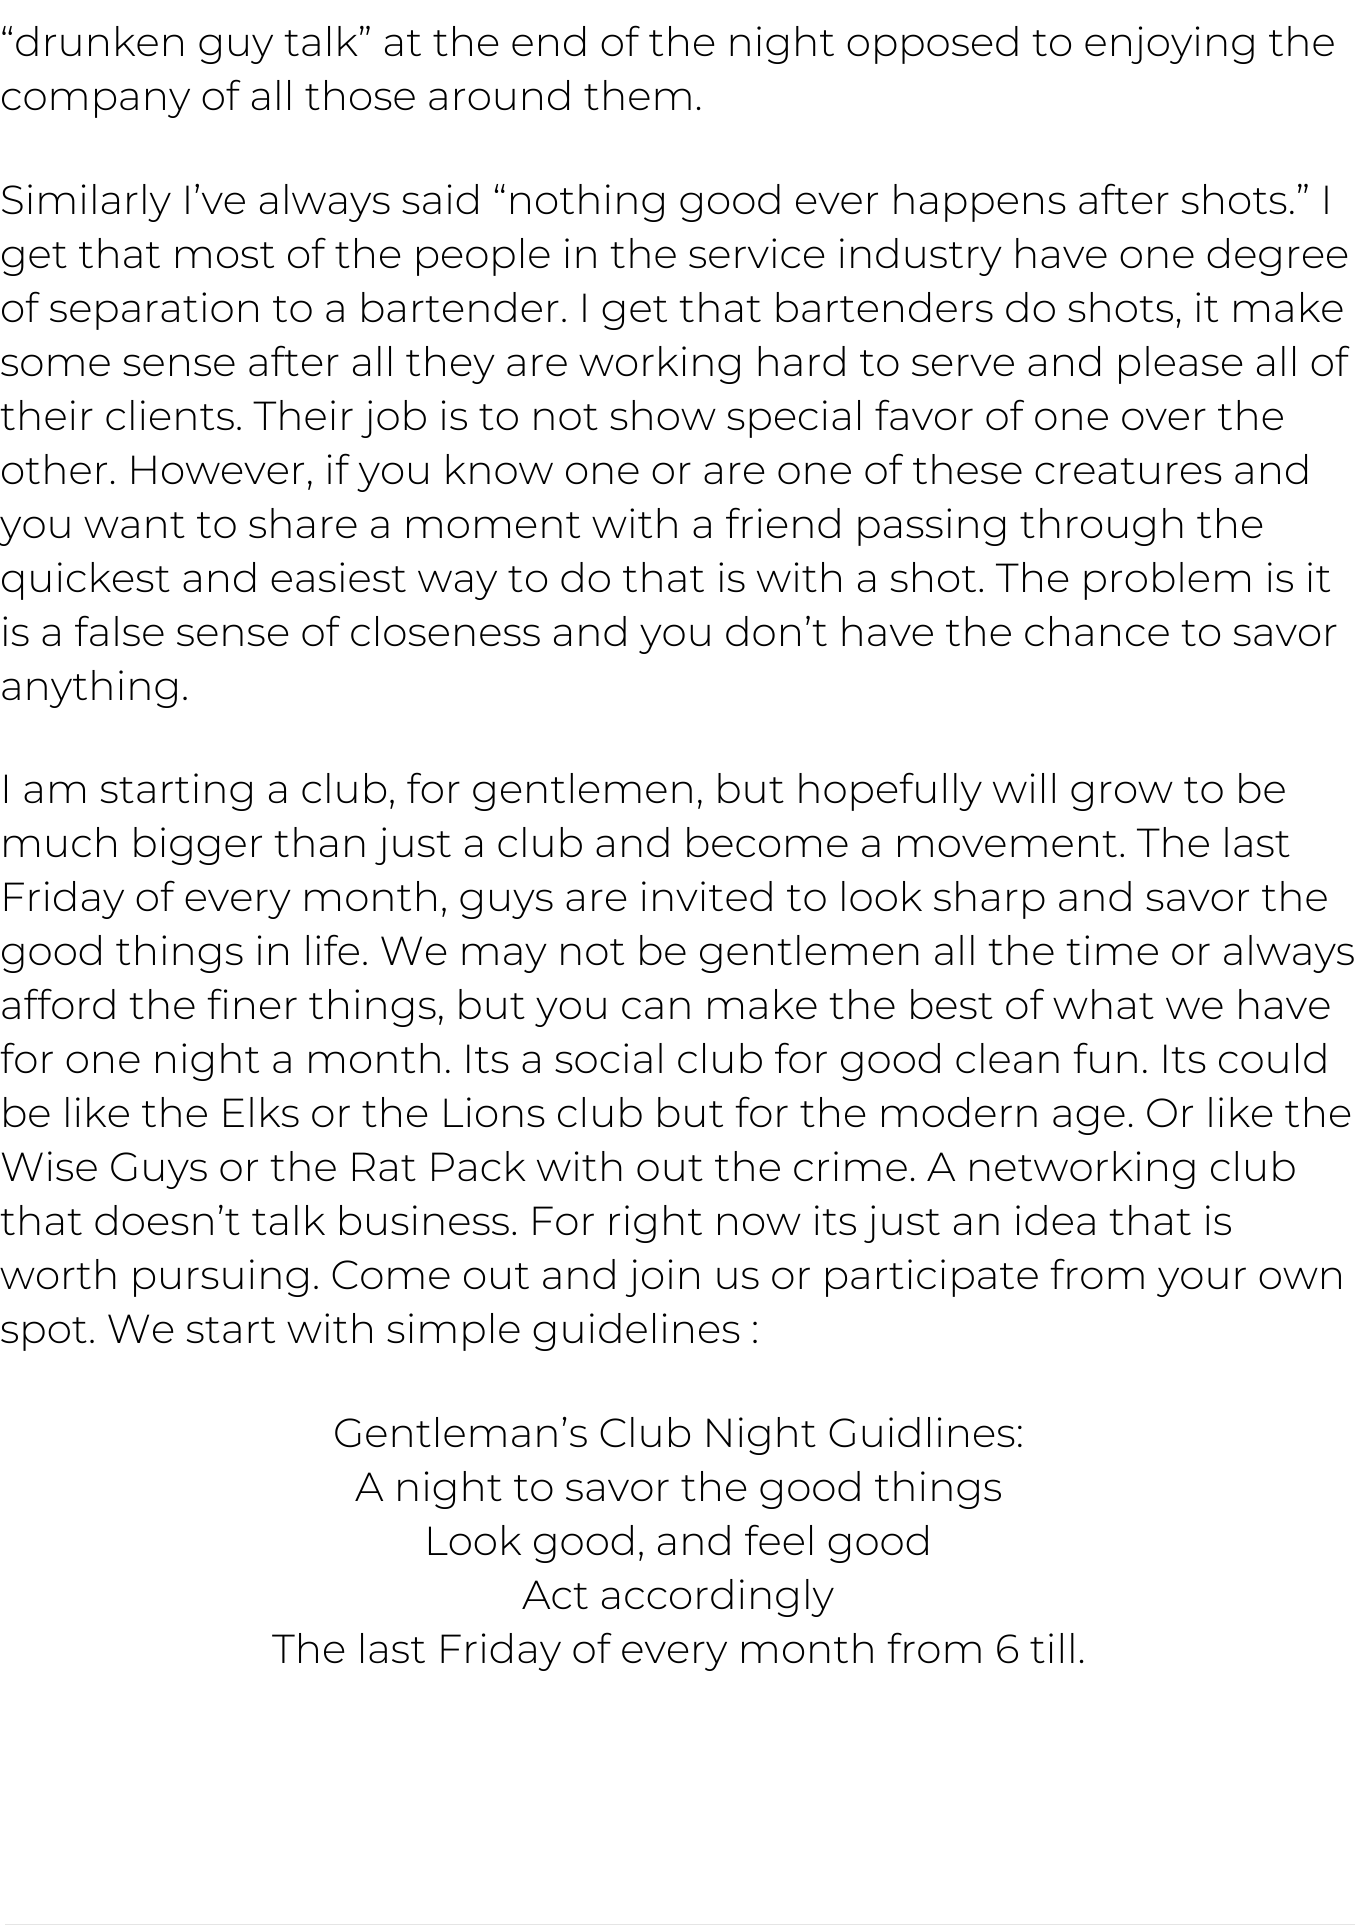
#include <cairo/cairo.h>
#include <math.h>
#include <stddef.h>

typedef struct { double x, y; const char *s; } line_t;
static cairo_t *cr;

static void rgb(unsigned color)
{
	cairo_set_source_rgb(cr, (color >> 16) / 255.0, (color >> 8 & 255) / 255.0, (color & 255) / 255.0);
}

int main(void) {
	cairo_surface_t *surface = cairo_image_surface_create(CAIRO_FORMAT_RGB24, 1355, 1925);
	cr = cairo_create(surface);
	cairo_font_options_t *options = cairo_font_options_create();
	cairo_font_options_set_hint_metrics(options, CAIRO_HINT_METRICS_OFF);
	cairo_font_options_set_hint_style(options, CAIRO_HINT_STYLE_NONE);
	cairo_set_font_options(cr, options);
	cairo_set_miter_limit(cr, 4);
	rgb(0xffffff);
	cairo_paint(cr);
	rgb(0xe5e5e5);
	cairo_rectangle(cr, 5, 1924, 1350, 1);
	cairo_fill(cr);
	cairo_select_font_face(cr, "Montserrat Light", CAIRO_FONT_SLANT_NORMAL, CAIRO_FONT_WEIGHT_NORMAL);
	cairo_set_font_size(cr, 40.5);
	rgb(0x000000);
	{
		static const line_t items[] = {
			{0, 56, "“drunken guy talk” at the end of the night opposed to enjoying the"},
			{0, 110, "company of all those around them."},
			{0, 214, "Similarly I’ve always said “nothing good ever happens after shots.” I"},
			{0, 268, "get that most of the people in the service industry have one degree"},
			{0, 322, "of separation to a bartender. I get that bartenders do shots, it make"},
			{0, 376, "some sense after all they are working hard to serve and please all of"},
			{0, 430, "their clients. Their job is to not show special favor of one over the"},
			{0, 484, "other. However, if you know one or are one of these creatures and"},
			{0, 538, "you want to share a moment with a friend passing through the"},
			{0, 592, "quickest and easiest way to do that is with a shot. The problem is it"},
			{0, 646, "is a false sense of closeness and you don’t have the chance to savor"},
			{0, 700, "anything."},
			{0, 803, "I am starting a club, for gentlemen, but hopefully will grow to be"},
			{0, 857, "much bigger than just a club and become a movement. The last"},
			{0, 911, "Friday of every month, guys are invited to look sharp and savor the"},
			{0, 965, "good things in life. We may not be gentlemen all the time or always"},
			{0, 1019, "afford the finer things, but you can make the best of what we have"},
			{0, 1073, "for one night a month. Its a social club for good clean fun. Its could"},
			{0, 1127, "be like the Elks or the Lions club but for the modern age. Or like the"},
			{0, 1181, "Wise Guys or the Rat Pack with out the crime. A networking club"},
			{0, 1235, "that doesn’t talk business. For right now its just an idea that is"},
			{0, 1289, "worth pursuing. Come out and join us or participate from your own"},
			{0, 1343, "spot. We start with simple guidelines :"},
			{333, 1447, "Gentleman’s Club Night Guidlines:"},
			{355, 1501, "A night to savor the good things"},
			{424, 1555, "Look good, and feel good"},
			{522, 1609, "Act accordingly"},
			{272, 1663, "The last Friday of every month from 6 till."},
		};
		for (size_t i = 0; i < sizeof items / sizeof *items; i++) {
			cairo_move_to(cr, items[i].x, items[i].y);
			cairo_show_text(cr, items[i].s);
		}
	}
	cairo_surface_write_to_png(surface, "page.png");
	cairo_font_options_destroy(options);
	cairo_destroy(cr);
	cairo_surface_destroy(surface);
	return 0;
}
